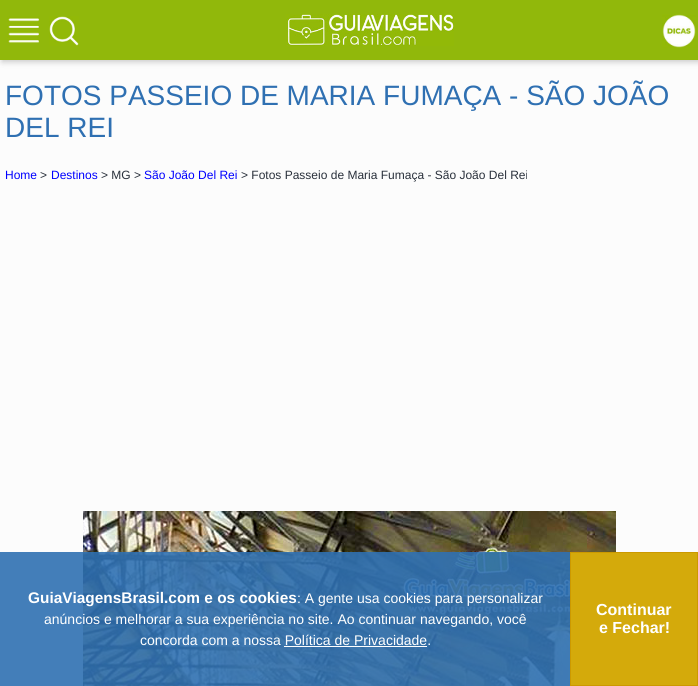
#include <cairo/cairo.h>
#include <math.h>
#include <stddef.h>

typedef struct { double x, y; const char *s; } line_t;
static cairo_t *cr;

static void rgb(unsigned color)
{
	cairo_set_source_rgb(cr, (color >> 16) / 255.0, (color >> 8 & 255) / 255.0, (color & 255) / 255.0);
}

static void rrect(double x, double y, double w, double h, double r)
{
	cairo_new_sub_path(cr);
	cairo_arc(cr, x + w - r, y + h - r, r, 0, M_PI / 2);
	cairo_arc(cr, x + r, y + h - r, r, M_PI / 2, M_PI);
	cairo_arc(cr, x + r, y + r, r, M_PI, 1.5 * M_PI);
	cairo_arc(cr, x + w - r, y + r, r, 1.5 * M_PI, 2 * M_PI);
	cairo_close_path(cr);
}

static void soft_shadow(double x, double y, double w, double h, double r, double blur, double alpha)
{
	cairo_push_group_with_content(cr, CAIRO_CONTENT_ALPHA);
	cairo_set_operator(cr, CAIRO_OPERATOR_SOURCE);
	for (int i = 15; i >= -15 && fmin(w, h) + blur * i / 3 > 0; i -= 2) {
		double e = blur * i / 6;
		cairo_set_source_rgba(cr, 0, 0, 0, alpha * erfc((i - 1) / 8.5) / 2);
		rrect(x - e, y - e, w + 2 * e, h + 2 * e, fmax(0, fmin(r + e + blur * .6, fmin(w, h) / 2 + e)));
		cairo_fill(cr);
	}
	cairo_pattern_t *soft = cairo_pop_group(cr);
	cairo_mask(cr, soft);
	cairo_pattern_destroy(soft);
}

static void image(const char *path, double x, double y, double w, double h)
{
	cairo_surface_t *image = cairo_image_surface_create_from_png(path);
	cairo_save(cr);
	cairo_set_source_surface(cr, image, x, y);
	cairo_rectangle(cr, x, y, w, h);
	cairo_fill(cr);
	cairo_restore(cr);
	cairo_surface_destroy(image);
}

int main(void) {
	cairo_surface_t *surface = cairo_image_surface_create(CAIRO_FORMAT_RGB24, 698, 686);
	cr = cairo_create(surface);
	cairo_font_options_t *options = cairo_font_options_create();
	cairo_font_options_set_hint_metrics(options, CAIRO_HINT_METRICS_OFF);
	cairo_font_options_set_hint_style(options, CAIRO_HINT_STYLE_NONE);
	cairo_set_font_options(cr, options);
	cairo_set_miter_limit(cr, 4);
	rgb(0xfcfcfc);
	cairo_paint(cr);
	rgb(0x000000);
	soft_shadow(2, 2, 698, 60, 0, 3, 0.2);
	rgb(0x91b80b);
	cairo_rectangle(cr, 0, 0, 698, 60);
	cairo_fill(cr);
	image("img/1.png", 7, 16, 33, 27);
	image("img/2.png", 49, 16, 30, 30);
	image("img/3.png", 286, 14, 168, 32);
	image("img/4.png", 662, 14, 34, 34);
	image("img/5.png", 83, 511, 533, 175);
	cairo_set_source_rgba(cr, 0.184, 0.439, 0.698, 0.9);
	cairo_rectangle(cr, 0, 552, 570, 134);
	cairo_fill(cr);
	rgb(0xffffff);
	cairo_rectangle(cr, 284, 646, 143, 1);
	cairo_fill(cr);
	rgb(0xd4aa0b);
	cairo_rectangle(cr, 570.5, 552.5, 127, 133);
	cairo_fill_preserve(cr);
	rgb(0xcc9900);
	cairo_set_line_width(cr, 1);
	cairo_stroke(cr);
	cairo_select_font_face(cr, "Liberation Sans", CAIRO_FONT_SLANT_NORMAL, CAIRO_FONT_WEIGHT_NORMAL);
	cairo_set_font_size(cr, 28);
	rgb(0x2f70b2);
	cairo_move_to(cr, 5, 105);
	cairo_show_text(cr, "FOTOS PASSEIO DE MARIA FUMAÇA - SÃO JOÃO");
	cairo_move_to(cr, 5, 137);
	cairo_show_text(cr, "DEL REI");
	cairo_set_font_size(cr, 12);
	rgb(0x0000ff);
	cairo_move_to(cr, 5, 179);
	cairo_show_text(cr, "Home");
	rgb(0x29303b);
	cairo_move_to(cr, 40, 179);
	cairo_show_text(cr, ">");
	rgb(0x0000ff);
	cairo_move_to(cr, 51, 179);
	cairo_show_text(cr, "Destinos");
	rgb(0x29303b);
	cairo_move_to(cr, 101, 179);
	cairo_show_text(cr, "> MG >");
	rgb(0x0000ff);
	cairo_move_to(cr, 144, 179);
	cairo_show_text(cr, "São João Del Rei");
	rgb(0x29303b);
	cairo_move_to(cr, 241, 179);
	cairo_show_text(cr, "> Fotos Passeio de Maria Fumaça - São João Del Rei");
	cairo_select_font_face(cr, "Liberation Sans", CAIRO_FONT_SLANT_NORMAL, CAIRO_FONT_WEIGHT_BOLD);
	cairo_set_font_size(cr, 15.4);
	rgb(0xffffff);
	cairo_move_to(cr, 28, 603);
	cairo_show_text(cr, "GuiaViagensBrasil.com e os cookies");
	cairo_select_font_face(cr, "Liberation Sans", CAIRO_FONT_SLANT_NORMAL, CAIRO_FONT_WEIGHT_NORMAL);
	cairo_set_font_size(cr, 14);
	{
		static const line_t items[] = {
			{297, 603, ": A gente usa cookies para personalizar"},
			{44, 624, "anúncios e melhorar a sua experiência no site. Ao continuar navegando, você"},
			{140, 645, "concorda com a nossa Política de Privacidade."},
		};
		for (size_t i = 0; i < sizeof items / sizeof *items; i++) {
			cairo_move_to(cr, items[i].x, items[i].y);
			cairo_show_text(cr, items[i].s);
		}
	}
	cairo_select_font_face(cr, "Liberation Sans", CAIRO_FONT_SLANT_NORMAL, CAIRO_FONT_WEIGHT_BOLD);
	cairo_set_font_size(cr, 16);
	cairo_move_to(cr, 596, 615);
	cairo_show_text(cr, "Continuar");
	cairo_move_to(cr, 599, 633);
	cairo_show_text(cr, "e Fechar!");
	cairo_surface_write_to_png(surface, "page.png");
	cairo_font_options_destroy(options);
	cairo_destroy(cr);
	cairo_surface_destroy(surface);
	return 0;
}
